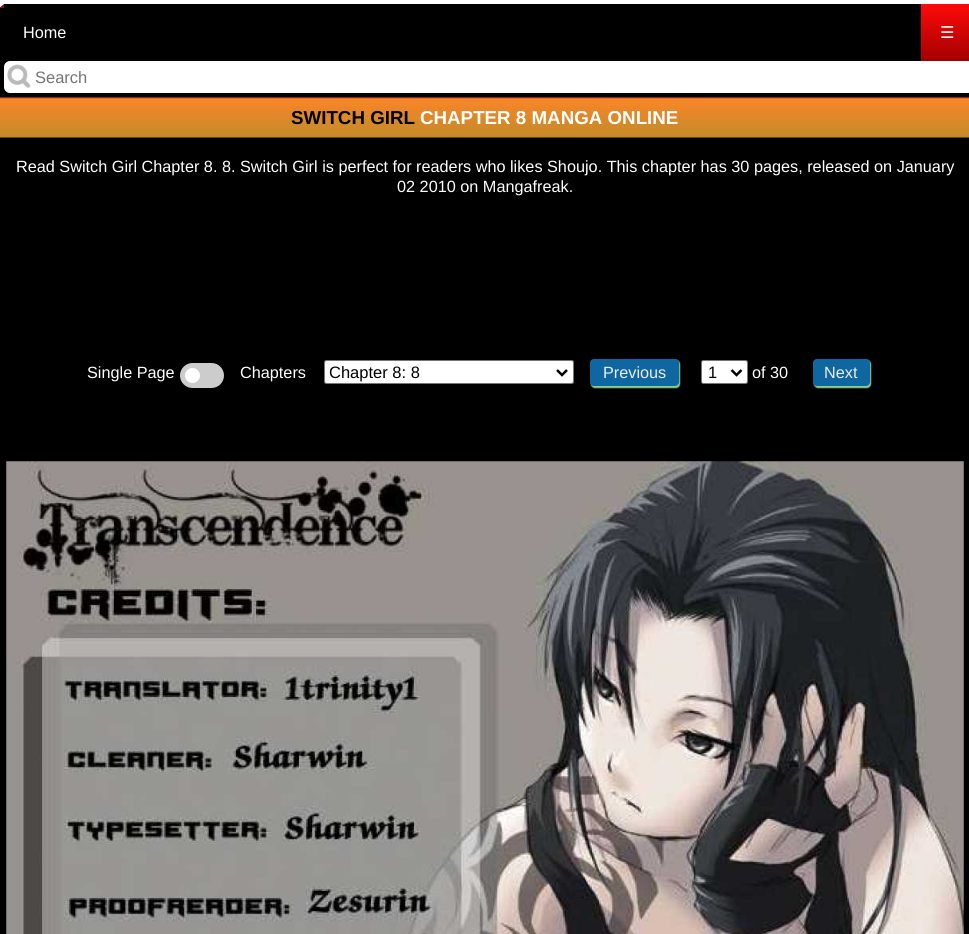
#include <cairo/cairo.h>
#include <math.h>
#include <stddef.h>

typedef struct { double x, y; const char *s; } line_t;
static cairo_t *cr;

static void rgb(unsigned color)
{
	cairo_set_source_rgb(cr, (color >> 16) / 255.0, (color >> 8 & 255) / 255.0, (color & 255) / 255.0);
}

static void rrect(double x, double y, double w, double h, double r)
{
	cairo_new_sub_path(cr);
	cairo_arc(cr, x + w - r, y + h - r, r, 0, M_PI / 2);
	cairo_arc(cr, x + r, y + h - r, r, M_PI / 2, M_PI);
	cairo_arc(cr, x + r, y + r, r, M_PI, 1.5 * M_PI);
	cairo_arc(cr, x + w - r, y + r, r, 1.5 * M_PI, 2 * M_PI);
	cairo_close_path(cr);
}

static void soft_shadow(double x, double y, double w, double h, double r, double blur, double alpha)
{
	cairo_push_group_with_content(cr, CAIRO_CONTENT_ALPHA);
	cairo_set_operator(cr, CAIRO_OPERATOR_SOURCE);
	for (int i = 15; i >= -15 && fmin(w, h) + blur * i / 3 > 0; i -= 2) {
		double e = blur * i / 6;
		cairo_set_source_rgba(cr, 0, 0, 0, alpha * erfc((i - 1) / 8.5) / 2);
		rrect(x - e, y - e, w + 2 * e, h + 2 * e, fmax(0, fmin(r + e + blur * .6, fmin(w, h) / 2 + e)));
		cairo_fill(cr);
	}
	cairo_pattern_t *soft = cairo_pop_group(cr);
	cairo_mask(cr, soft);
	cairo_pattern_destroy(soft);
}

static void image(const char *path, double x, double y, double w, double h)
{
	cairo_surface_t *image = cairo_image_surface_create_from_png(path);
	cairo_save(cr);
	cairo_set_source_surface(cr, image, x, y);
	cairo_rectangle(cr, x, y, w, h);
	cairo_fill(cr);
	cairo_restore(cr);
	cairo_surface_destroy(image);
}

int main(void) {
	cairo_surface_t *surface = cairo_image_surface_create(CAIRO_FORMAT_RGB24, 969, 934);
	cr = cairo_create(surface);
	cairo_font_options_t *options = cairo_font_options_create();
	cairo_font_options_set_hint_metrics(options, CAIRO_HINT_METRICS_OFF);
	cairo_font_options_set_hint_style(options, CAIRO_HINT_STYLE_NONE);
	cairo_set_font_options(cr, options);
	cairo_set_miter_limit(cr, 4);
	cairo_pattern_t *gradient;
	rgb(0x000000);
	cairo_paint(cr);
	rgb(0xffffff);
	cairo_rectangle(cr, 0, 0, 969, 4);
	cairo_fill(cr);
	cairo_new_path(cr);
	cairo_move_to(cr, 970, 0);
	cairo_line_to(cr, 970, 7.5);
	cairo_line_to(cr, 966, 4);
	cairo_close_path(cr);
	cairo_fill(cr);
	rgb(0xaa0000);
	cairo_new_path(cr);
	cairo_move_to(cr, 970, 8);
	cairo_line_to(cr, 0, 8);
	cairo_line_to(cr, 4, 4);
	cairo_line_to(cr, 966, 4);
	cairo_close_path(cr);
	cairo_fill(cr);
	rgb(0xffffff);
	cairo_new_path(cr);
	cairo_move_to(cr, 0, 7.5);
	cairo_line_to(cr, 0, 0);
	cairo_line_to(cr, 4, 4);
	cairo_close_path(cr);
	cairo_fill(cr);
	rgb(0x000000);
	cairo_rectangle(cr, 4, 4, 965, 4);
	cairo_fill(cr);
	gradient = cairo_pattern_create_linear(948, 3.7, 948, 61);
	cairo_pattern_add_color_stop_rgba(gradient, 0, 1, 0.039, 0.039, 1);
	cairo_pattern_add_color_stop_rgba(gradient, 1, 0.639, 0, 0, 1);
	cairo_set_source(cr, gradient);
	cairo_pattern_destroy(gradient);
	cairo_rectangle(cr, 921, 4, 48, 57);
	cairo_fill(cr);
	rgb(0xffffff);
	rrect(4, 61, 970, 32, 6);
	cairo_fill(cr);
	image("img/1.png", 7, 64, 24, 24);
	image("img/2.png", 0, 97, 969, 41);
	rgb(0xcccccc);
	rrect(180, 363, 44, 25, 12.5);
	cairo_fill(cr);
	rgb(0xffffff);
	cairo_arc(cr, 192.5, 375.5, 7.5, 0, 2 * M_PI);
	cairo_fill(cr);
	rrect(324.5, 360.5, 249, 23, 2);
	cairo_fill_preserve(cr);
	rgb(0x767676);
	cairo_set_line_width(cr, 1);
	cairo_stroke(cr);
	cairo_new_path(cr);
	cairo_move_to(cr, 557, 370);
	cairo_line_to(cr, 562, 375);
	cairo_line_to(cr, 567, 370);
	rgb(0x000000);
	cairo_set_line_width(cr, 2.5);
	cairo_stroke(cr);
	rgb(0x8dd08f);
	soft_shadow(591, 360, 89, 28, 4, 0.5, 1);
	rgb(0x0f67a1);
	rrect(590, 359, 89, 27, 4);
	cairo_fill(cr);
	rgb(0xffffff);
	rrect(701.5, 360.5, 46, 23, 2);
	cairo_fill_preserve(cr);
	rgb(0x767676);
	cairo_set_line_width(cr, 1);
	cairo_stroke(cr);
	cairo_new_path(cr);
	cairo_move_to(cr, 731.5, 370);
	cairo_line_to(cr, 736.5, 375);
	cairo_line_to(cr, 741.5, 370);
	rgb(0x000000);
	cairo_set_line_width(cr, 2.5);
	cairo_stroke(cr);
	rgb(0x8dd08f);
	soft_shadow(814, 360, 57, 28, 4, 0.5, 1);
	rgb(0x0f67a1);
	rrect(813, 359, 57, 27, 4);
	cairo_fill(cr);
	image("img/3.png", 6, 461, 958, 473);
	cairo_select_font_face(cr, "Liberation Sans", CAIRO_FONT_SLANT_NORMAL, CAIRO_FONT_WEIGHT_NORMAL);
	cairo_set_font_size(cr, 16.25);
	rgb(0xffffff);
	cairo_move_to(cr, 23, 38);
	cairo_show_text(cr, "Home");
	cairo_select_font_face(cr, "DejaVu Sans", CAIRO_FONT_SLANT_NORMAL, CAIRO_FONT_WEIGHT_NORMAL);
	cairo_move_to(cr, 940, 38);
	cairo_show_text(cr, "☰");
	cairo_select_font_face(cr, "Liberation Sans", CAIRO_FONT_SLANT_NORMAL, CAIRO_FONT_WEIGHT_NORMAL);
	cairo_set_font_size(cr, 16.5);
	rgb(0x757575);
	cairo_move_to(cr, 35, 83);
	cairo_show_text(cr, "Search");
	cairo_select_font_face(cr, "Liberation Sans", CAIRO_FONT_SLANT_NORMAL, CAIRO_FONT_WEIGHT_BOLD);
	cairo_set_font_size(cr, 18.75);
	rgb(0x000000);
	cairo_move_to(cr, 291, 124);
	cairo_show_text(cr, "SWITCH GIRL");
	rgb(0xffffff);
	cairo_move_to(cr, 420, 124);
	cairo_show_text(cr, "CHAPTER 8 MANGA ONLINE");
	cairo_select_font_face(cr, "Liberation Sans", CAIRO_FONT_SLANT_NORMAL, CAIRO_FONT_WEIGHT_NORMAL);
	cairo_set_font_size(cr, 16.25);
	{
		static const line_t items[] = {
			{16, 172, "Read Switch Girl Chapter 8. 8. Switch Girl is perfect for readers who likes Shoujo. This chapter has 30 pages, released on January"},
			{397, 192, "02 2010 on Mangafreak."},
			{87, 378, "Single Page"},
			{240, 378, "Chapters"},
		};
		for (size_t i = 0; i < sizeof items / sizeof *items; i++) {
			cairo_move_to(cr, items[i].x, items[i].y);
			cairo_show_text(cr, items[i].s);
		}
	}
	cairo_set_font_size(cr, 16.5);
	rgb(0x000000);
	cairo_move_to(cr, 329, 378);
	cairo_show_text(cr, "Chapter 8: 8");
	cairo_set_font_size(cr, 16.25);
	rgb(0xebebeb);
	cairo_move_to(cr, 603, 378);
	cairo_show_text(cr, "Previous");
	cairo_set_font_size(cr, 16.5);
	rgb(0x000000);
	cairo_move_to(cr, 708, 378);
	cairo_show_text(cr, "1");
	cairo_set_font_size(cr, 16.25);
	rgb(0xffffff);
	cairo_move_to(cr, 752, 378);
	cairo_show_text(cr, "of 30");
	rgb(0xebebeb);
	cairo_move_to(cr, 824, 378);
	cairo_show_text(cr, "Next");
	cairo_surface_write_to_png(surface, "page.png");
	cairo_font_options_destroy(options);
	cairo_destroy(cr);
	cairo_surface_destroy(surface);
	return 0;
}
